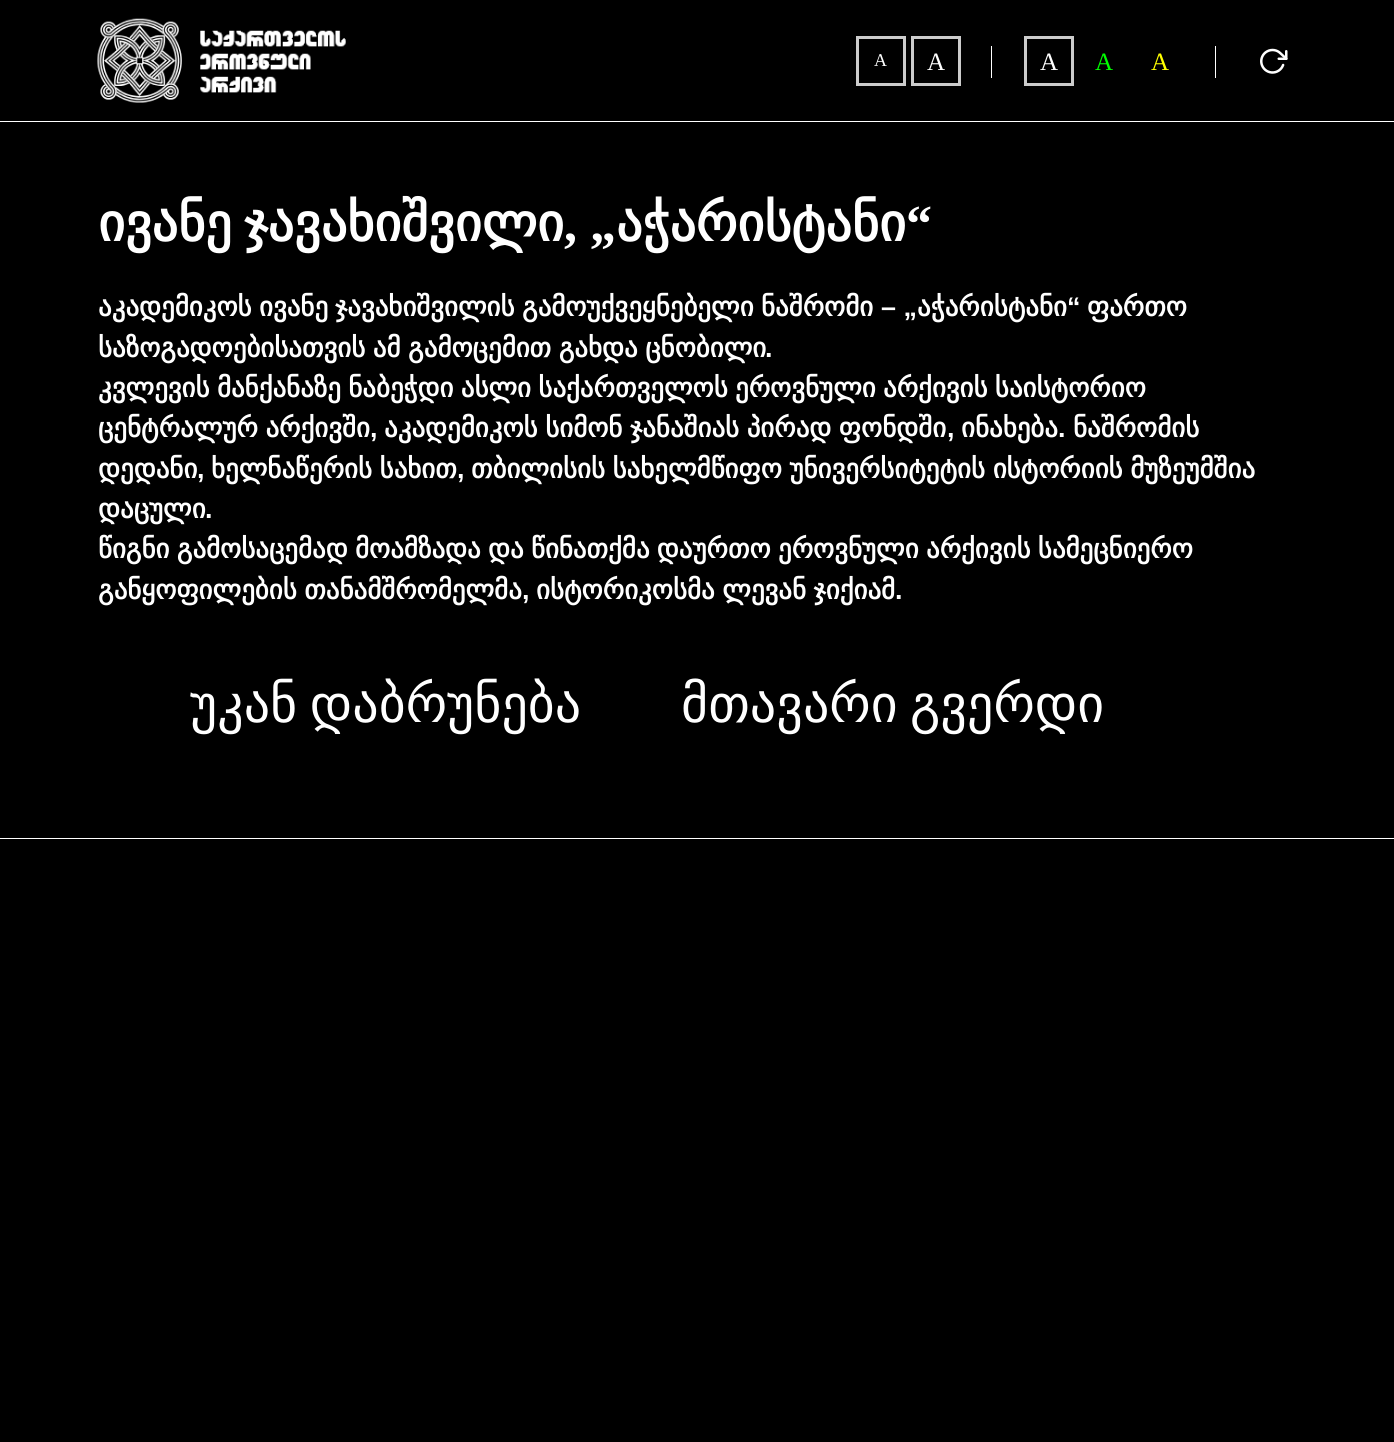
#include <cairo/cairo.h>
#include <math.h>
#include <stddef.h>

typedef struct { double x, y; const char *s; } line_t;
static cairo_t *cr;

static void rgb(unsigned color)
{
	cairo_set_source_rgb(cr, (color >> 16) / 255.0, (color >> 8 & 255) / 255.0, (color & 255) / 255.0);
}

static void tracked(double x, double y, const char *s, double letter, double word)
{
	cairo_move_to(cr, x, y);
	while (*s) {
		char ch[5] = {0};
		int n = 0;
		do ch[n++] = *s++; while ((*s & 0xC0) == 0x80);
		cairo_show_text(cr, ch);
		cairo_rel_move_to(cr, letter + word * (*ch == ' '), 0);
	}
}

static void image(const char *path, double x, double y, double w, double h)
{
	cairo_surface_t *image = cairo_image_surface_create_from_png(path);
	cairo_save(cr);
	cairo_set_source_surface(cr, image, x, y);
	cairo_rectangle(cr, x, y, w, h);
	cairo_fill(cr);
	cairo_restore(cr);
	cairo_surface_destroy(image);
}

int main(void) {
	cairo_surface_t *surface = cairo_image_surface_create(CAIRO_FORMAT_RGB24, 1394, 1442);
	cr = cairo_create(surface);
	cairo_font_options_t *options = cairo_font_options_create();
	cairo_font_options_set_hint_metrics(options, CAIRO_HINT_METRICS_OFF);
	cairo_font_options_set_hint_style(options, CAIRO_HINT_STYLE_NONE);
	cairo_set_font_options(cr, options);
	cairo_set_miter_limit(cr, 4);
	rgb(0x000000);
	cairo_paint(cr);
	rgb(0xffffff);
	cairo_rectangle(cr, 0, 121, 1394, 1);
	cairo_fill(cr);
	image("img/1.png", 97, 18, 249, 85);
	cairo_rectangle(cr, 857.5, 37.5, 47, 47);
	rgb(0xcccccc);
	cairo_set_line_width(cr, 3);
	cairo_stroke(cr);
	cairo_rectangle(cr, 912.5, 37.5, 47, 47);
	cairo_stroke(cr);
	rgb(0xffffff);
	cairo_rectangle(cr, 991, 46, 1, 32);
	cairo_fill(cr);
	cairo_rectangle(cr, 1025.5, 37.5, 47, 47);
	rgb(0xcccccc);
	cairo_stroke(cr);
	rgb(0xffffff);
	cairo_rectangle(cr, 1215, 46, 1, 32);
	cairo_fill(cr);
	image("img/2.png", 1260, 48, 28, 26);
	cairo_rectangle(cr, 0, 838, 1394, 1);
	cairo_fill(cr);
	cairo_select_font_face(cr, "Liberation Serif", CAIRO_FONT_SLANT_NORMAL, CAIRO_FONT_WEIGHT_NORMAL);
	cairo_set_font_size(cr, 18);
	cairo_move_to(cr, 874, 66);
	cairo_show_text(cr, "A");
	cairo_set_font_size(cr, 25);
	cairo_move_to(cr, 927, 70);
	cairo_show_text(cr, "A");
	cairo_move_to(cr, 1040, 70);
	cairo_show_text(cr, "A");
	rgb(0x00ff00);
	cairo_move_to(cr, 1095, 70);
	cairo_show_text(cr, "A");
	rgb(0xffff00);
	cairo_move_to(cr, 1151, 70);
	cairo_show_text(cr, "A");
	cairo_select_font_face(cr, "DejaVu Sans", CAIRO_FONT_SLANT_NORMAL, CAIRO_FONT_WEIGHT_BOLD);
	cairo_set_font_size(cr, 52);
	rgb(0xffffff);
	{
		static const line_t items[] = {
			{98, 241, "ივანე"},
			{244, 241, "ჯავახიშვილი"},
			{616, 241, "აჭარისტანი"},
		};
		for (size_t i = 0; i < sizeof items / sizeof *items; i++) {
			cairo_move_to(cr, items[i].x, items[i].y);
			cairo_show_text(cr, items[i].s);
		}
	}
	cairo_select_font_face(cr, "Liberation Serif", CAIRO_FONT_SLANT_NORMAL, CAIRO_FONT_WEIGHT_BOLD);
	cairo_move_to(cr, 906, 241);
	cairo_show_text(cr, "“");
	cairo_move_to(cr, 564, 241);
	cairo_show_text(cr, ", „");
	cairo_select_font_face(cr, "DejaVu Sans", CAIRO_FONT_SLANT_NORMAL, CAIRO_FONT_WEIGHT_BOLD);
	cairo_set_font_size(cr, 26.9);
	{
		static const line_t items[] = {
			{98, 316, "აკადემიკოს"},
			{259, 316, "ივანე"},
			{335, 316, "ჯავახიშვილის"},
			{522, 316, "გამოუქვეყნებელი"},
			{761, 316, "ნაშრომი"},
			{917, 316, "აჭარისტანი"},
		};
		for (size_t i = 0; i < sizeof items / sizeof *items; i++) {
			cairo_move_to(cr, items[i].x, items[i].y);
			cairo_show_text(cr, items[i].s);
		}
	}
	cairo_select_font_face(cr, "Liberation Sans", CAIRO_FONT_SLANT_NORMAL, CAIRO_FONT_WEIGHT_BOLD);
	cairo_move_to(cr, 1067, 316);
	cairo_show_text(cr, "“");
	cairo_select_font_face(cr, "DejaVu Sans", CAIRO_FONT_SLANT_NORMAL, CAIRO_FONT_WEIGHT_BOLD);
	cairo_move_to(cr, 1087, 316);
	cairo_show_text(cr, "ფართო");
	cairo_select_font_face(cr, "Liberation Sans", CAIRO_FONT_SLANT_NORMAL, CAIRO_FONT_WEIGHT_BOLD);
	cairo_move_to(cr, 881, 316);
	cairo_show_text(cr, "– „");
	cairo_select_font_face(cr, "DejaVu Sans", CAIRO_FONT_SLANT_NORMAL, CAIRO_FONT_WEIGHT_BOLD);
	tracked(98, 357, "საზოგადოებისათვის ამ გამოცემით გახდა ცნობილი", 0, -1);
	cairo_select_font_face(cr, "Liberation Sans", CAIRO_FONT_SLANT_NORMAL, CAIRO_FONT_WEIGHT_BOLD);
	cairo_move_to(cr, 765, 357);
	cairo_show_text(cr, ".");
	cairo_select_font_face(cr, "DejaVu Sans", CAIRO_FONT_SLANT_NORMAL, CAIRO_FONT_WEIGHT_BOLD);
	tracked(98, 397, "კვლევის მანქანაზე ნაბეჭდი ასლი საქართველოს ეროვნული არქივის საისტორიო", 0, -1.25);
	tracked(98, 437, "ცენტრალურ არქივში", 0, -1);
	cairo_select_font_face(cr, "Liberation Sans", CAIRO_FONT_SLANT_NORMAL, CAIRO_FONT_WEIGHT_BOLD);
	cairo_move_to(cr, 370, 437);
	cairo_show_text(cr, ",");
	cairo_select_font_face(cr, "DejaVu Sans", CAIRO_FONT_SLANT_NORMAL, CAIRO_FONT_WEIGHT_BOLD);
	tracked(384, 437, "აკადემიკოს სიმონ ჯანაშიას პირად ფონდში", 0, -1);
	cairo_select_font_face(cr, "Liberation Sans", CAIRO_FONT_SLANT_NORMAL, CAIRO_FONT_WEIGHT_BOLD);
	cairo_move_to(cr, 947, 437);
	cairo_show_text(cr, ",");
	cairo_select_font_face(cr, "DejaVu Sans", CAIRO_FONT_SLANT_NORMAL, CAIRO_FONT_WEIGHT_BOLD);
	cairo_move_to(cr, 961, 437);
	cairo_show_text(cr, "ინახება");
	cairo_select_font_face(cr, "Liberation Sans", CAIRO_FONT_SLANT_NORMAL, CAIRO_FONT_WEIGHT_BOLD);
	cairo_move_to(cr, 1058, 437);
	cairo_show_text(cr, ".");
	cairo_select_font_face(cr, "DejaVu Sans", CAIRO_FONT_SLANT_NORMAL, CAIRO_FONT_WEIGHT_BOLD);
	cairo_move_to(cr, 1073, 437);
	cairo_show_text(cr, "ნაშრომის");
	cairo_move_to(cr, 98, 478);
	cairo_show_text(cr, "დედანი");
	cairo_select_font_face(cr, "Liberation Sans", CAIRO_FONT_SLANT_NORMAL, CAIRO_FONT_WEIGHT_BOLD);
	cairo_move_to(cr, 197, 478);
	cairo_show_text(cr, ",");
	cairo_select_font_face(cr, "DejaVu Sans", CAIRO_FONT_SLANT_NORMAL, CAIRO_FONT_WEIGHT_BOLD);
	tracked(211, 478, "ხელნაწერის სახით", 0, -1);
	cairo_select_font_face(cr, "Liberation Sans", CAIRO_FONT_SLANT_NORMAL, CAIRO_FONT_WEIGHT_BOLD);
	cairo_move_to(cr, 457, 478);
	cairo_show_text(cr, ",");
	cairo_select_font_face(cr, "DejaVu Sans", CAIRO_FONT_SLANT_NORMAL, CAIRO_FONT_WEIGHT_BOLD);
	tracked(471, 478, "თბილისის სახელმწიფო უნივერსიტეტის ისტორიის მუზეუმშია", 0, -1);
	cairo_move_to(cr, 98, 518);
	cairo_show_text(cr, "დაცული");
	cairo_select_font_face(cr, "Liberation Sans", CAIRO_FONT_SLANT_NORMAL, CAIRO_FONT_WEIGHT_BOLD);
	cairo_move_to(cr, 205, 518);
	cairo_show_text(cr, ".");
	cairo_select_font_face(cr, "DejaVu Sans", CAIRO_FONT_SLANT_NORMAL, CAIRO_FONT_WEIGHT_BOLD);
	tracked(98, 558, "წიგნი გამოსაცემად მოამზადა და წინათქმა დაურთო ეროვნული არქივის სამეცნიერო", 0, -1.25);
	tracked(98, 599, "განყოფილების თანამშრომელმა", 0, -1);
	cairo_select_font_face(cr, "Liberation Sans", CAIRO_FONT_SLANT_NORMAL, CAIRO_FONT_WEIGHT_BOLD);
	cairo_move_to(cr, 522, 599);
	cairo_show_text(cr, ",");
	cairo_select_font_face(cr, "DejaVu Sans", CAIRO_FONT_SLANT_NORMAL, CAIRO_FONT_WEIGHT_BOLD);
	tracked(536, 599, "ისტორიკოსმა ლევან ჯიქიამ", 0, -1);
	cairo_select_font_face(cr, "Liberation Sans", CAIRO_FONT_SLANT_NORMAL, CAIRO_FONT_WEIGHT_BOLD);
	cairo_move_to(cr, 895, 599);
	cairo_show_text(cr, ".");
	cairo_select_font_face(cr, "DejaVu Sans", CAIRO_FONT_SLANT_NORMAL, CAIRO_FONT_WEIGHT_NORMAL);
	cairo_set_font_size(cr, 52);
	tracked(190, 722, "უკან დაბრუნება", 0, -4);
	tracked(681, 722, "მთავარი გვერდი", 0, -4);
	cairo_surface_write_to_png(surface, "page.png");
	cairo_font_options_destroy(options);
	cairo_destroy(cr);
	cairo_surface_destroy(surface);
	return 0;
}
